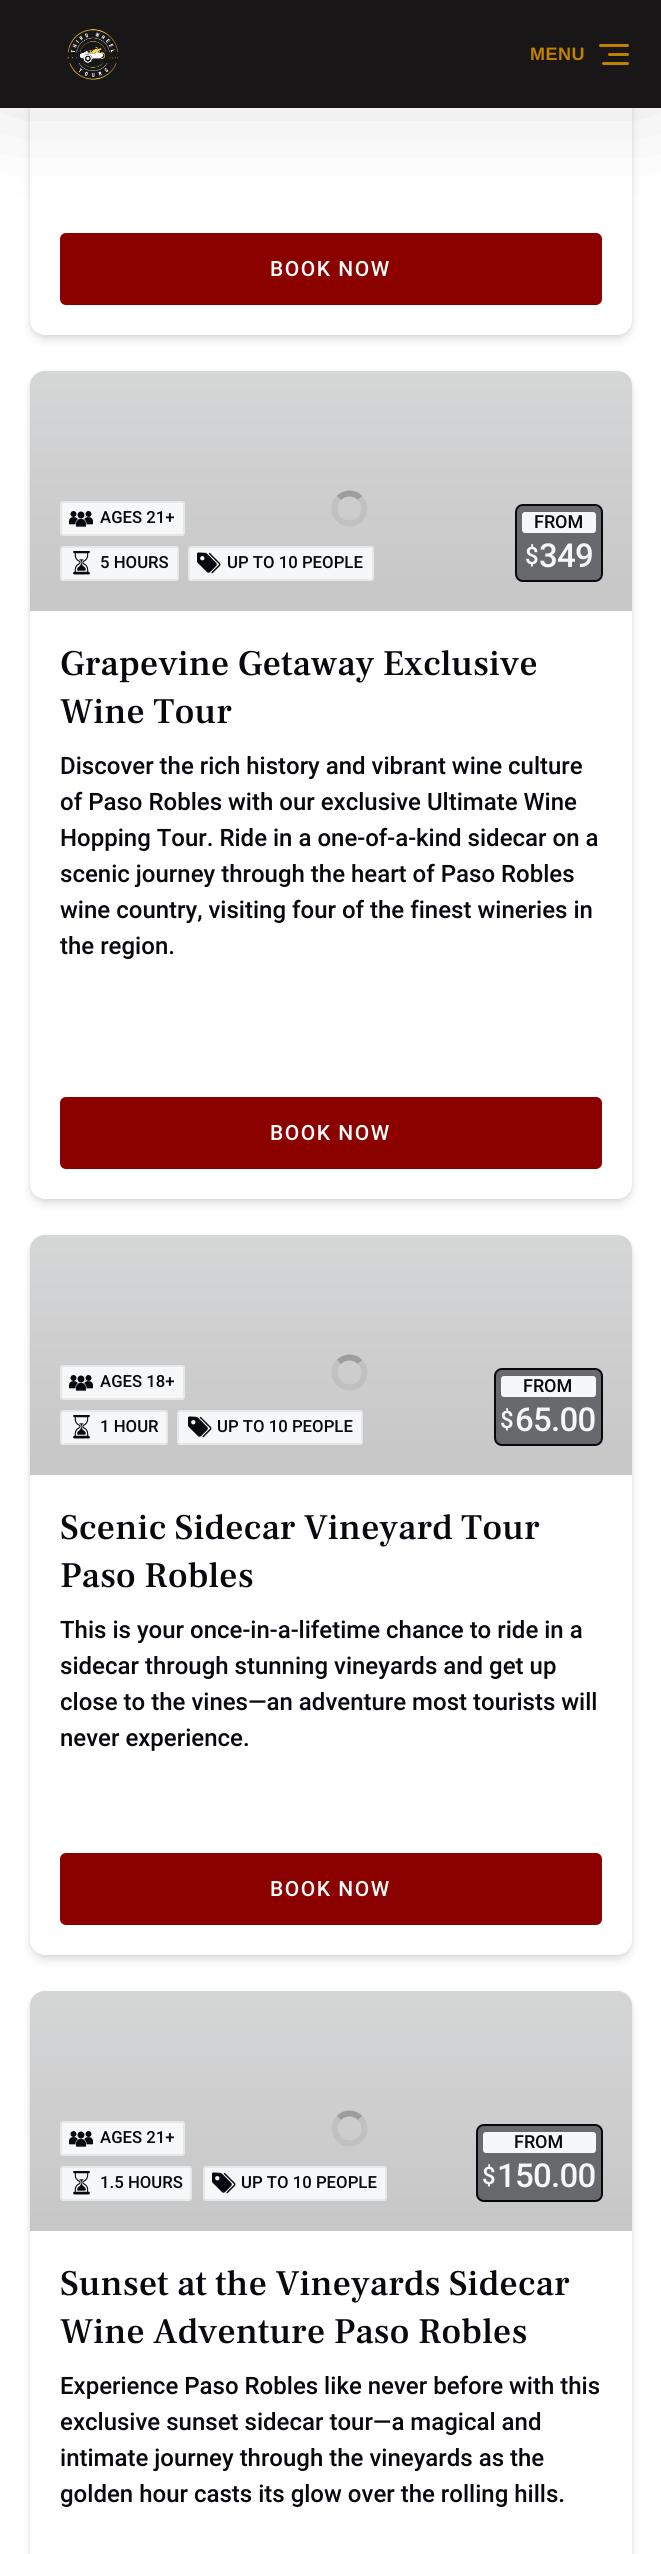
#include <cairo/cairo.h>
#include <math.h>
#include <stddef.h>

typedef struct { double x, y; const char *s; } line_t;
static cairo_t *cr;

static void rgb(unsigned color)
{
	cairo_set_source_rgb(cr, (color >> 16) / 255.0, (color >> 8 & 255) / 255.0, (color & 255) / 255.0);
}

static void tracked(double x, double y, const char *s, double letter, double word)
{
	cairo_move_to(cr, x, y);
	while (*s) {
		char ch[5] = {0};
		int n = 0;
		do ch[n++] = *s++; while ((*s & 0xC0) == 0x80);
		cairo_show_text(cr, ch);
		cairo_rel_move_to(cr, letter + word * (*ch == ' '), 0);
	}
}

static void rrect(double x, double y, double w, double h, double r)
{
	cairo_new_sub_path(cr);
	cairo_arc(cr, x + w - r, y + h - r, r, 0, M_PI / 2);
	cairo_arc(cr, x + r, y + h - r, r, M_PI / 2, M_PI);
	cairo_arc(cr, x + r, y + r, r, M_PI, 1.5 * M_PI);
	cairo_arc(cr, x + w - r, y + r, r, 1.5 * M_PI, 2 * M_PI);
	cairo_close_path(cr);
}

static void soft_shadow(double x, double y, double w, double h, double r, double blur, double alpha)
{
	cairo_push_group_with_content(cr, CAIRO_CONTENT_ALPHA);
	cairo_set_operator(cr, CAIRO_OPERATOR_SOURCE);
	for (int i = 15; i >= -15 && fmin(w, h) + blur * i / 3 > 0; i -= 2) {
		double e = blur * i / 6;
		cairo_set_source_rgba(cr, 0, 0, 0, alpha * erfc((i - 1) / 8.5) / 2);
		rrect(x - e, y - e, w + 2 * e, h + 2 * e, fmax(0, fmin(r + e + blur * .6, fmin(w, h) / 2 + e)));
		cairo_fill(cr);
	}
	cairo_pattern_t *soft = cairo_pop_group(cr);
	cairo_mask(cr, soft);
	cairo_pattern_destroy(soft);
}

static void image(const char *path, double x, double y, double w, double h)
{
	cairo_surface_t *image = cairo_image_surface_create_from_png(path);
	cairo_save(cr);
	cairo_set_source_surface(cr, image, x, y);
	cairo_rectangle(cr, x, y, w, h);
	cairo_fill(cr);
	cairo_restore(cr);
	cairo_surface_destroy(image);
}

int main(void) {
	cairo_surface_t *surface = cairo_image_surface_create(CAIRO_FORMAT_RGB24, 661, 2554);
	cr = cairo_create(surface);
	cairo_font_options_t *options = cairo_font_options_create();
	cairo_font_options_set_hint_metrics(options, CAIRO_HINT_METRICS_OFF);
	cairo_font_options_set_hint_style(options, CAIRO_HINT_STYLE_NONE);
	cairo_set_font_options(cr, options);
	cairo_set_miter_limit(cr, 4);
	cairo_pattern_t *gradient;
	rgb(0xffffff);
	cairo_paint(cr);
	rgb(0x000000);
	soft_shadow(30, -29, 602, 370, 15, 4.5, 0.1);
	soft_shadow(30, -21, 602, 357, 15, 2, 0.08);
	rgb(0xffffff);
	rrect(30, -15, 602, 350, 15);
	cairo_fill(cr);
	rgb(0x8b0100);
	rrect(60, 233, 542, 72, 6);
	cairo_fill(cr);
	rgb(0x08090e);
	soft_shadow(0, -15, 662, 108, 0, 56, 0.15);
	rgb(0x191617);
	cairo_rectangle(cr, 0, 0, 661, 108);
	cairo_fill(cr);
	image("img/1.png", 67, 28, 52, 53);
	rgb(0xc18001);
	rrect(608, 53, 21, 3, 1.5);
	cairo_fill(cr);
	rrect(599, 44, 30, 3, 1.5);
	cairo_fill(cr);
	rrect(602, 62, 27, 3, 1.5);
	cairo_fill(cr);
	rgb(0x000000);
	soft_shadow(30, 377, 602, 828, 15, 4.5, 0.1);
	soft_shadow(30, 372, 602, 828, 15, 2, 0.08);
	rgb(0xffffff);
	rrect(30, 371, 602, 828, 15);
	cairo_fill(cr);
	gradient = cairo_pattern_create_linear(331, 611, 331, 371);
	cairo_pattern_add_color_stop_rgba(gradient, 0, 0.031, 0.035, 0.055, 0.23);
	cairo_pattern_add_color_stop_rgba(gradient, 1, 0.031, 0.035, 0.055, 0.17);
	cairo_set_source(cr, gradient);
	cairo_pattern_destroy(gradient);
	cairo_new_path(cr);
	cairo_move_to(cr, 45, 371);
	cairo_line_to(cr, 617, 371);
	cairo_curve_to(cr, 625.5, 371, 632, 377.5, 632, 386);
	cairo_line_to(cr, 632, 611);
	cairo_line_to(cr, 30, 611);
	cairo_line_to(cr, 30, 386);
	cairo_curve_to(cr, 30, 377.5, 36.5, 371, 45, 371);
	cairo_close_path(cr);
	cairo_fill(cr);
	cairo_new_path(cr);
	cairo_move_to(cr, 339, 498);
	cairo_curve_to(cr, 344.5, 492, 354.5, 492, 360, 498);
	rgb(0x9c9d9f);
	cairo_set_line_width(cr, 6);
	cairo_stroke(cr);
	cairo_new_path(cr);
	cairo_move_to(cr, 360, 498);
	cairo_curve_to(cr, 363.5, 501.5, 365, 506.5, 364, 511.5);
	cairo_curve_to(cr, 360.5, 529, 334.5, 526.5, 334.5, 508.5);
	cairo_curve_to(cr, 334.5, 504.5, 336, 500.5, 339, 498);
	cairo_set_source_rgba(cr, 0.608, 0.612, 0.62, 0.25);
	cairo_stroke(cr);
	rgb(0xf5f7f9);
	rrect(60, 501, 125, 35, 3);
	cairo_fill(cr);
	rrect(61, 502, 123, 33, 2);
	cairo_set_source_rgba(cr, 0.031, 0.035, 0.055, 0.07);
	cairo_set_line_width(cr, 2);
	cairo_stroke(cr);
	image("img/2.png", 69, 511, 24, 16);
	rgb(0xf5f7f9);
	rrect(60, 546, 119, 35, 3);
	cairo_fill(cr);
	rrect(61, 547, 117, 33, 2);
	cairo_set_source_rgba(cr, 0.031, 0.035, 0.055, 0.07);
	cairo_stroke(cr);
	image("img/3.png", 73, 551, 17, 24);
	rgb(0xf5f7f9);
	rrect(188, 546, 186, 35, 3);
	cairo_fill(cr);
	rrect(189, 547, 184, 33, 2);
	cairo_set_source_rgba(cr, 0.031, 0.035, 0.055, 0.07);
	cairo_stroke(cr);
	image("img/4.png", 197, 552, 24, 22);
	rrect(516, 505, 86, 76, 7);
	rgb(0x08090e);
	cairo_stroke(cr);
	cairo_set_source_rgba(cr, 0.031, 0.035, 0.055, 0.5);
	rrect(516, 506, 86, 75, 6);
	cairo_fill(cr);
	rgb(0xf5f7f9);
	rrect(522, 512, 74, 21, 3);
	cairo_fill(cr);
	rgb(0x8b0100);
	rrect(60, 1097, 542, 72, 6);
	cairo_fill(cr);
	rgb(0x000000);
	soft_shadow(30, 1241, 602, 720, 15, 4.5, 0.1);
	soft_shadow(30, 1236, 602, 720, 15, 2, 0.08);
	rgb(0xffffff);
	rrect(30, 1235, 602, 720, 15);
	cairo_fill(cr);
	gradient = cairo_pattern_create_linear(331, 1475, 331, 1235);
	cairo_pattern_add_color_stop_rgba(gradient, 0, 0.031, 0.035, 0.055, 0.23);
	cairo_pattern_add_color_stop_rgba(gradient, 1, 0.031, 0.035, 0.055, 0.17);
	cairo_set_source(cr, gradient);
	cairo_pattern_destroy(gradient);
	cairo_new_path(cr);
	cairo_move_to(cr, 45, 1235);
	cairo_line_to(cr, 617, 1235);
	cairo_curve_to(cr, 625.5, 1235, 632, 1241.5, 632, 1250);
	cairo_line_to(cr, 632, 1475);
	cairo_line_to(cr, 30, 1475);
	cairo_line_to(cr, 30, 1250);
	cairo_curve_to(cr, 30, 1241.5, 36.5, 1235, 45, 1235);
	cairo_close_path(cr);
	cairo_fill(cr);
	cairo_new_path(cr);
	cairo_move_to(cr, 339, 1362);
	cairo_curve_to(cr, 344.5, 1356, 354.5, 1356, 360, 1362);
	rgb(0x9c9d9f);
	cairo_set_line_width(cr, 6);
	cairo_stroke(cr);
	cairo_new_path(cr);
	cairo_move_to(cr, 360, 1362);
	cairo_curve_to(cr, 363, 1364.5, 364.5, 1368.5, 364.5, 1372.5);
	cairo_curve_to(cr, 364.5, 1390.5, 338.5, 1393, 335, 1375.5);
	cairo_curve_to(cr, 334, 1370.5, 335.5, 1365.5, 339, 1362);
	cairo_set_source_rgba(cr, 0.608, 0.612, 0.62, 0.25);
	cairo_stroke(cr);
	rgb(0xf5f7f9);
	rrect(60, 1365, 125, 35, 3);
	cairo_fill(cr);
	rrect(61, 1366, 123, 33, 2);
	cairo_set_source_rgba(cr, 0.031, 0.035, 0.055, 0.07);
	cairo_set_line_width(cr, 2);
	cairo_stroke(cr);
	image("img/2.png", 69, 1375, 24, 16);
	rgb(0xf5f7f9);
	rrect(60, 1410, 108, 35, 3);
	cairo_fill(cr);
	rrect(61, 1411, 106, 33, 2);
	cairo_set_source_rgba(cr, 0.031, 0.035, 0.055, 0.07);
	cairo_stroke(cr);
	image("img/3.png", 73, 1415, 17, 24);
	rgb(0xf5f7f9);
	rrect(177, 1410, 186, 35, 3);
	cairo_fill(cr);
	rrect(178, 1411, 184, 33, 2);
	cairo_set_source_rgba(cr, 0.031, 0.035, 0.055, 0.07);
	cairo_stroke(cr);
	image("img/4.png", 188, 1416, 24, 22);
	rrect(495, 1369, 107, 76, 7);
	rgb(0x08090e);
	cairo_stroke(cr);
	cairo_set_source_rgba(cr, 0.031, 0.035, 0.055, 0.5);
	rrect(495, 1370, 107, 75, 6);
	cairo_fill(cr);
	rgb(0xf5f7f9);
	rrect(501, 1376, 95, 21, 3);
	cairo_fill(cr);
	rgb(0x8b0100);
	rrect(60, 1853, 542, 72, 6);
	cairo_fill(cr);
	rgb(0x000000);
	soft_shadow(30, 1997, 602, 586, 15, 4.5, 0.1);
	soft_shadow(30, 1992, 602, 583, 15, 2, 0.08);
	rgb(0xffffff);
	rrect(30, 1991, 602, 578, 15);
	cairo_fill(cr);
	gradient = cairo_pattern_create_linear(331, 2231, 331, 1991);
	cairo_pattern_add_color_stop_rgba(gradient, 0, 0.031, 0.035, 0.055, 0.23);
	cairo_pattern_add_color_stop_rgba(gradient, 1, 0.031, 0.035, 0.055, 0.17);
	cairo_set_source(cr, gradient);
	cairo_pattern_destroy(gradient);
	cairo_new_path(cr);
	cairo_move_to(cr, 45, 1991);
	cairo_line_to(cr, 617, 1991);
	cairo_curve_to(cr, 625.5, 1991, 632, 1997.5, 632, 2006);
	cairo_line_to(cr, 632, 2231);
	cairo_line_to(cr, 30, 2231);
	cairo_line_to(cr, 30, 2006);
	cairo_curve_to(cr, 30, 1997.5, 36.5, 1991, 45, 1991);
	cairo_close_path(cr);
	cairo_fill(cr);
	cairo_new_path(cr);
	cairo_move_to(cr, 339, 2118);
	cairo_curve_to(cr, 344.5, 2112, 354.5, 2112, 360, 2118);
	rgb(0x9c9d9f);
	cairo_set_line_width(cr, 6);
	cairo_stroke(cr);
	cairo_new_path(cr);
	cairo_move_to(cr, 360, 2118);
	cairo_curve_to(cr, 363, 2120.5, 364.5, 2124.5, 364.5, 2128.5);
	cairo_curve_to(cr, 364.5, 2146.5, 338.5, 2149, 335, 2131.5);
	cairo_curve_to(cr, 334, 2126.5, 335.5, 2121.5, 339, 2118);
	cairo_set_source_rgba(cr, 0.608, 0.612, 0.62, 0.25);
	cairo_stroke(cr);
	rgb(0xf5f7f9);
	rrect(60, 2121, 125, 35, 3);
	cairo_fill(cr);
	rrect(61, 2122, 123, 33, 2);
	cairo_set_source_rgba(cr, 0.031, 0.035, 0.055, 0.07);
	cairo_set_line_width(cr, 2);
	cairo_stroke(cr);
	image("img/2.png", 69, 2131, 24, 16);
	rgb(0xf5f7f9);
	rrect(60, 2166, 132, 35, 3);
	cairo_fill(cr);
	rrect(61, 2167, 130, 33, 2);
	cairo_set_source_rgba(cr, 0.031, 0.035, 0.055, 0.07);
	cairo_stroke(cr);
	image("img/3.png", 73, 2171, 17, 24);
	rgb(0xf5f7f9);
	rrect(203, 2166, 184, 35, 3);
	cairo_fill(cr);
	rrect(204, 2167, 182, 33, 2);
	cairo_set_source_rgba(cr, 0.031, 0.035, 0.055, 0.07);
	cairo_stroke(cr);
	image("img/4.png", 212, 2172, 24, 22);
	rrect(477, 2125, 125, 76, 7);
	rgb(0x08090e);
	cairo_stroke(cr);
	cairo_set_source_rgba(cr, 0.031, 0.035, 0.055, 0.5);
	rrect(477, 2126, 125, 75, 6);
	cairo_fill(cr);
	rgb(0xf5f7f9);
	rrect(483, 2132, 113, 21, 3);
	cairo_fill(cr);
	cairo_select_font_face(cr, "Liberation Sans", CAIRO_FONT_SLANT_NORMAL, CAIRO_FONT_WEIGHT_BOLD);
	cairo_set_font_size(cr, 18);
	rgb(0xc18001);
	tracked(530, 60, "MENU", 0.5, 0);
	cairo_select_font_face(cr, "Roboto Medium", CAIRO_FONT_SLANT_NORMAL, CAIRO_FONT_WEIGHT_NORMAL);
	cairo_set_font_size(cr, 21);
	rgb(0xffffff);
	tracked(270, 276, "BOOK NOW", 1.5, 0);
	cairo_set_font_size(cr, 16.75);
	rgb(0x08090e);
	{
		static const line_t items[] = {
			{100, 523, "AGES 21+"},
			{100, 568, "5 HOURS"},
			{227, 568, "UP TO 10 PEOPLE"},
		};
		for (size_t i = 0; i < sizeof items / sizeof *items; i++) {
			cairo_move_to(cr, items[i].x, items[i].y);
			cairo_show_text(cr, items[i].s);
		}
	}
	cairo_set_font_size(cr, 18);
	cairo_move_to(cr, 534, 528);
	cairo_show_text(cr, "FROM");
	cairo_set_font_size(cr, 24);
	rgb(0xf5f7f9);
	tracked(525, 564, "$", -0.75, 0);
	cairo_set_font_size(cr, 33);
	tracked(539, 567, "349", -0.75, 0);
	cairo_select_font_face(cr, "Frank Ruhl Libre Medium", CAIRO_FONT_SLANT_NORMAL, CAIRO_FONT_WEIGHT_NORMAL);
	cairo_set_font_size(cr, 36);
	rgb(0x08090e);
	cairo_move_to(cr, 60, 675);
	cairo_show_text(cr, "Grapevine Getaway Exclusive");
	cairo_move_to(cr, 60, 723);
	cairo_show_text(cr, "Wine Tour");
	cairo_select_font_face(cr, "Roboto Medium", CAIRO_FONT_SLANT_NORMAL, CAIRO_FONT_WEIGHT_NORMAL);
	cairo_set_font_size(cr, 24);
	{
		static const line_t items[] = {
			{60, 774, "Discover the rich history and vibrant wine culture"},
			{60, 810, "of Paso Robles with our exclusive Ultimate Wine"},
			{60, 846, "Hopping Tour. Ride in a one-of-a-kind sidecar on a"},
			{60, 882, "scenic journey through the heart of Paso Robles"},
			{60, 918, "wine country, visiting four of the finest wineries in"},
			{60, 954, "the region."},
		};
		for (size_t i = 0; i < sizeof items / sizeof *items; i++) {
			cairo_move_to(cr, items[i].x, items[i].y);
			cairo_show_text(cr, items[i].s);
		}
	}
	cairo_set_font_size(cr, 21);
	rgb(0xffffff);
	tracked(270, 1140, "BOOK NOW", 1.5, 0);
	cairo_set_font_size(cr, 16.75);
	rgb(0x08090e);
	{
		static const line_t items[] = {
			{100, 1387, "AGES 18+"},
			{100, 1432, "1 HOUR"},
			{217, 1432, "UP TO 10 PEOPLE"},
		};
		for (size_t i = 0; i < sizeof items / sizeof *items; i++) {
			cairo_move_to(cr, items[i].x, items[i].y);
			cairo_show_text(cr, items[i].s);
		}
	}
	cairo_set_font_size(cr, 18);
	cairo_move_to(cr, 523, 1392);
	cairo_show_text(cr, "FROM");
	cairo_set_font_size(cr, 24);
	rgb(0xf5f7f9);
	tracked(500, 1428, "$", -0.75, 0);
	cairo_set_font_size(cr, 33);
	tracked(515, 1431, "65.00", -0.75, 0);
	cairo_select_font_face(cr, "Frank Ruhl Libre Medium", CAIRO_FONT_SLANT_NORMAL, CAIRO_FONT_WEIGHT_NORMAL);
	cairo_set_font_size(cr, 36);
	rgb(0x08090e);
	cairo_move_to(cr, 60, 1539);
	cairo_show_text(cr, "Scenic Sidecar Vineyard Tour");
	cairo_move_to(cr, 60, 1587);
	cairo_show_text(cr, "Paso Robles");
	cairo_select_font_face(cr, "Roboto Medium", CAIRO_FONT_SLANT_NORMAL, CAIRO_FONT_WEIGHT_NORMAL);
	cairo_set_font_size(cr, 24);
	{
		static const line_t items[] = {
			{60, 1638, "This is your once-in-a-lifetime chance to ride in a"},
			{60, 1674, "sidecar through stunning vineyards and get up"},
			{60, 1710, "close to the vines—an adventure most tourists will"},
			{60, 1746, "never experience."},
		};
		for (size_t i = 0; i < sizeof items / sizeof *items; i++) {
			cairo_move_to(cr, items[i].x, items[i].y);
			cairo_show_text(cr, items[i].s);
		}
	}
	cairo_set_font_size(cr, 21);
	rgb(0xffffff);
	tracked(270, 1896, "BOOK NOW", 1.5, 0);
	cairo_set_font_size(cr, 16.75);
	rgb(0x08090e);
	{
		static const line_t items[] = {
			{100, 2143, "AGES 21+"},
			{100, 2188, "1.5 HOURS"},
			{241, 2188, "UP TO 10 PEOPLE"},
		};
		for (size_t i = 0; i < sizeof items / sizeof *items; i++) {
			cairo_move_to(cr, items[i].x, items[i].y);
			cairo_show_text(cr, items[i].s);
		}
	}
	cairo_set_font_size(cr, 18);
	cairo_move_to(cr, 514, 2148);
	cairo_show_text(cr, "FROM");
	cairo_set_font_size(cr, 24);
	rgb(0xf5f7f9);
	tracked(482, 2184, "$", -0.75, 0);
	cairo_set_font_size(cr, 33);
	tracked(497, 2187, "150.00", -0.75, 0);
	cairo_select_font_face(cr, "Frank Ruhl Libre Medium", CAIRO_FONT_SLANT_NORMAL, CAIRO_FONT_WEIGHT_NORMAL);
	cairo_set_font_size(cr, 36);
	rgb(0x08090e);
	cairo_move_to(cr, 60, 2295);
	cairo_show_text(cr, "Sunset at the Vineyards Sidecar");
	cairo_move_to(cr, 60, 2343);
	cairo_show_text(cr, "Wine Adventure Paso Robles");
	cairo_select_font_face(cr, "Roboto Medium", CAIRO_FONT_SLANT_NORMAL, CAIRO_FONT_WEIGHT_NORMAL);
	cairo_set_font_size(cr, 24);
	{
		static const line_t items[] = {
			{60, 2394, "Experience Paso Robles like never before with this"},
			{60, 2430, "exclusive sunset sidecar tour—a magical and"},
			{60, 2466, "intimate journey through the vineyards as the"},
			{60, 2502, "golden hour casts its glow over the rolling hills."},
		};
		for (size_t i = 0; i < sizeof items / sizeof *items; i++) {
			cairo_move_to(cr, items[i].x, items[i].y);
			cairo_show_text(cr, items[i].s);
		}
	}
	cairo_surface_write_to_png(surface, "page.png");
	cairo_font_options_destroy(options);
	cairo_destroy(cr);
	cairo_surface_destroy(surface);
	return 0;
}
